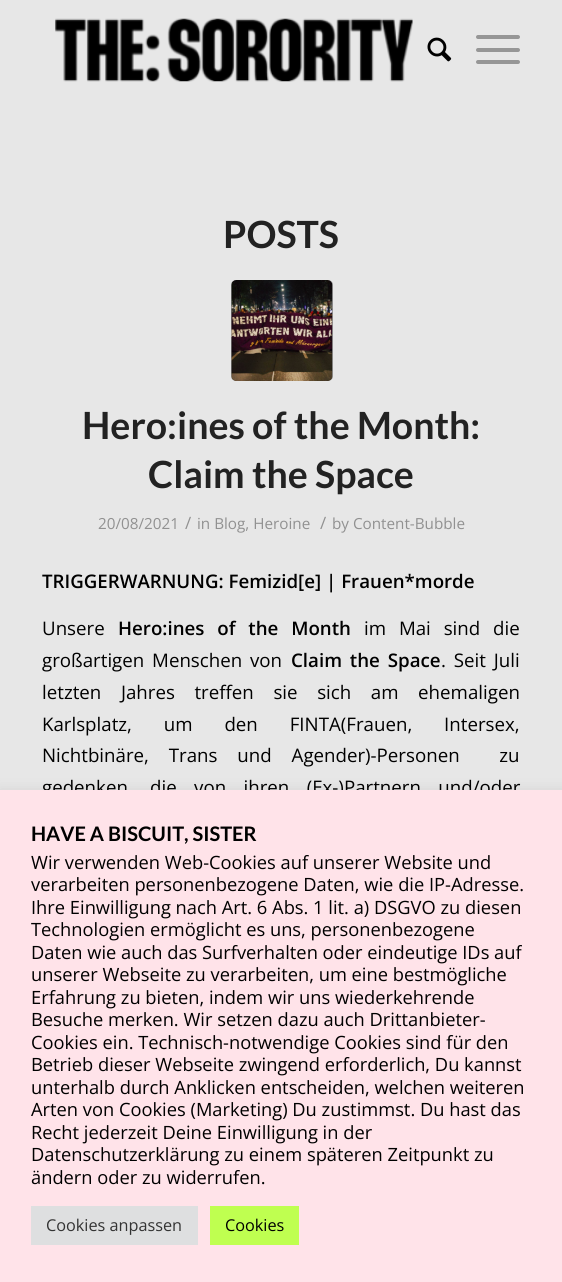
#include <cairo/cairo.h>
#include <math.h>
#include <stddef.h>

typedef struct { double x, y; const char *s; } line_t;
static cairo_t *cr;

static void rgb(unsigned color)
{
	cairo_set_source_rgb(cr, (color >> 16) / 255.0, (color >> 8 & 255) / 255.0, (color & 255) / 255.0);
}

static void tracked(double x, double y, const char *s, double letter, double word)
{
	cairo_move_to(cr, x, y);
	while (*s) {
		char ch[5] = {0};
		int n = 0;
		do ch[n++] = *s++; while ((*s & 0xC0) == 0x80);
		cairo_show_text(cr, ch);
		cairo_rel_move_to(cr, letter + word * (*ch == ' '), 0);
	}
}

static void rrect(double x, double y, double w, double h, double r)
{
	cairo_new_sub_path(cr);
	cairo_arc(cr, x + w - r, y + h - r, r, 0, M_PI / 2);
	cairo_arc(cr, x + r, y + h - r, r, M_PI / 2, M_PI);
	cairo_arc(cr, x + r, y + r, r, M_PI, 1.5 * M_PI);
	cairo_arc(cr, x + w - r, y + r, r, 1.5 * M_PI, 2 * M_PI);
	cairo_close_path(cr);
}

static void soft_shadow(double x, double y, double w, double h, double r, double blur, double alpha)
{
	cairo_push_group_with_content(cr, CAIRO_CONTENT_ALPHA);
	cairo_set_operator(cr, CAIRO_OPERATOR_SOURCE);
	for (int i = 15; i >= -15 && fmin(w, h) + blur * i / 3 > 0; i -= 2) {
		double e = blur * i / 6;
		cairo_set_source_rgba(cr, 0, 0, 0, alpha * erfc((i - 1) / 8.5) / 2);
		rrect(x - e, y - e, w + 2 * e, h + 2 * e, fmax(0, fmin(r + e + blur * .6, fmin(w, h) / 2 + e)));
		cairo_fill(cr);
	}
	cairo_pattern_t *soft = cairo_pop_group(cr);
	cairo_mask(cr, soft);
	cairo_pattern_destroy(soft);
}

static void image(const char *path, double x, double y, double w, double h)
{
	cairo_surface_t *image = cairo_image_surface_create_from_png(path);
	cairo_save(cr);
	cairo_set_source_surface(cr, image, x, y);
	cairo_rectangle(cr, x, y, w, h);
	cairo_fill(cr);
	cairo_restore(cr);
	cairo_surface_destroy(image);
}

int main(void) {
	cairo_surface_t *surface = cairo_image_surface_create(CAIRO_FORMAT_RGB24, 562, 1282);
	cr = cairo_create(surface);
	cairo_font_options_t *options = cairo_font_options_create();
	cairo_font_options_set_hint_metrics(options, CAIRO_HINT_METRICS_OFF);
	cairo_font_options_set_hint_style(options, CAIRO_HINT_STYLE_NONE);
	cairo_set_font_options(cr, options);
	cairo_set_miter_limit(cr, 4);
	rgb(0xe7e7e7);
	cairo_paint(cr);
	image("img/1.png", 55, 18, 358, 64);
	image("img/2.png", 427, 37, 25, 25);
	rgb(0x969696);
	rrect(476, 48, 44, 4, 2);
	cairo_fill(cr);
	rrect(476, 35, 44, 4, 2);
	cairo_fill(cr);
	rrect(476, 60, 44, 4, 2);
	cairo_fill(cr);
	rgb(0x919191);
	rrect(231, 280, 102, 101, 5);
	cairo_fill(cr);
	image("img/3.png", 231, 280, 102, 101);
	rgb(0xacabab);
	soft_shadow(0, 789, 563, 492, 0, 6, 0.3);
	cairo_select_font_face(cr, "Lato", CAIRO_FONT_SLANT_NORMAL, CAIRO_FONT_WEIGHT_BOLD);
	cairo_set_font_size(cr, 37.5);
	rgb(0x222222);
	{
		static const line_t items[] = {
			{223, 248, "POSTS"},
			{82, 439, "Hero:ines of the Month:"},
			{148, 488, "Claim the Space"},
		};
		for (size_t i = 0; i < sizeof items / sizeof *items; i++) {
			cairo_move_to(cr, items[i].x, items[i].y);
			cairo_show_text(cr, items[i].s);
		}
	}
	cairo_select_font_face(cr, "Open Sans", CAIRO_FONT_SLANT_NORMAL, CAIRO_FONT_WEIGHT_NORMAL);
	cairo_set_font_size(cr, 15.25);
	rgb(0x919191);
	cairo_move_to(cr, 98, 529);
	cairo_show_text(cr, "20/08/2021");
	cairo_set_font_size(cr, 17);
	cairo_move_to(cr, 185, 529);
	cairo_show_text(cr, "/");
	cairo_set_font_size(cr, 15.25);
	cairo_move_to(cr, 197, 529);
	cairo_show_text(cr, "in Blog, Heroine");
	cairo_set_font_size(cr, 17);
	cairo_move_to(cr, 320, 529);
	cairo_show_text(cr, "/");
	cairo_set_font_size(cr, 15.25);
	cairo_move_to(cr, 332, 529);
	cairo_show_text(cr, "by Content-Bubble");
	cairo_select_font_face(cr, "Open Sans SemiBold", CAIRO_FONT_SLANT_NORMAL, CAIRO_FONT_WEIGHT_NORMAL);
	cairo_set_font_size(cr, 18.7);
	rgb(0x000000);
	cairo_move_to(cr, 42, 588);
	cairo_show_text(cr, "TRIGGERWARNUNG: Femizid[e] | Frauen*morde");
	cairo_select_font_face(cr, "Open Sans", CAIRO_FONT_SLANT_NORMAL, CAIRO_FONT_WEIGHT_NORMAL);
	cairo_move_to(cr, 42, 635);
	cairo_show_text(cr, "Unsere");
	cairo_select_font_face(cr, "Open Sans SemiBold", CAIRO_FONT_SLANT_NORMAL, CAIRO_FONT_WEIGHT_NORMAL);
	tracked(118, 635, "Hero:ines of the Month", 0, 8);
	cairo_select_font_face(cr, "Open Sans", CAIRO_FONT_SLANT_NORMAL, CAIRO_FONT_WEIGHT_NORMAL);
	tracked(364, 635, "im Mai sind die", 0, 8);
	tracked(42, 667, "großartigen Menschen von", 0, 3);
	cairo_select_font_face(cr, "Open Sans SemiBold", CAIRO_FONT_SLANT_NORMAL, CAIRO_FONT_WEIGHT_NORMAL);
	tracked(291, 667, "Claim the Space", 0, 3);
	cairo_select_font_face(cr, "Open Sans", CAIRO_FONT_SLANT_NORMAL, CAIRO_FONT_WEIGHT_NORMAL);
	tracked(441, 667, ". Seit Juli", 0, 3);
	tracked(42, 699, "letzten Jahres treffen sie sich am ehemaligen", 0, 14.75);
	tracked(42, 731, "Karlsplatz, um den FINTA(Frauen, Intersex,", 0, 27);
	tracked(42, 762, "Nichtbinäre, Trans und Agender)-Personen  zu", 0, 15);
	tracked(42, 794, "gedenken, die von ihren (Ex-)Partnern und/oder", 0, 12.5);
	rgb(0xffe3e9);
	cairo_rectangle(cr, 0, 790, 562, 492);
	cairo_fill(cr);
	cairo_select_font_face(cr, "Lato", CAIRO_FONT_SLANT_NORMAL, CAIRO_FONT_WEIGHT_BOLD);
	cairo_set_font_size(cr, 20);
	rgb(0x000000);
	cairo_move_to(cr, 31, 841);
	cairo_show_text(cr, "HAVE A BISCUIT, SISTER");
	cairo_select_font_face(cr, "Open Sans", CAIRO_FONT_SLANT_NORMAL, CAIRO_FONT_WEIGHT_NORMAL);
	cairo_set_font_size(cr, 18.3);
	{
		static const line_t items[] = {
			{31, 869, "Wir verwenden Web-Cookies auf unserer Website und"},
			{31, 891, "verarbeiten personenbezogene Daten, wie die IP-Adresse."},
			{31, 914, "Ihre Einwilligung nach Art. 6 Abs. 1 lit. a) DSGVO zu diesen"},
			{31, 936, "Technologien ermöglicht es uns, personenbezogene"},
			{31, 959, "Daten wie auch das Surfverhalten oder eindeutige IDs auf"},
			{31, 981, "unserer Webseite zu verarbeiten, um eine bestmögliche"},
			{31, 1004, "Erfahrung zu bieten, indem wir uns wiederkehrende"},
			{31, 1026, "Besuche merken. Wir setzen dazu auch Drittanbieter-"},
			{31, 1049, "Cookies ein. Technisch-notwendige Cookies sind für den"},
			{31, 1071, "Betrieb dieser Webseite zwingend erforderlich, Du kannst"},
			{31, 1094, "unterhalb durch Anklicken entscheiden, welchen weiteren"},
			{31, 1116, "Arten von Cookies (Marketing) Du zustimmst. Du hast das"},
			{31, 1139, "Recht jederzeit Deine Einwilligung in der"},
			{31, 1161, "Datenschutzerklärung zu einem späteren Zeitpunkt zu"},
			{31, 1184, "ändern oder zu widerrufen."},
		};
		for (size_t i = 0; i < sizeof items / sizeof *items; i++) {
			cairo_move_to(cr, items[i].x, items[i].y);
			cairo_show_text(cr, items[i].s);
		}
	}
	rgb(0xdedfe0);
	cairo_rectangle(cr, 31, 1206, 167, 39);
	cairo_fill(cr);
	cairo_set_font_size(cr, 16.25);
	rgb(0x333333);
	cairo_move_to(cr, 46, 1231);
	cairo_show_text(cr, "Cookies anpassen");
	rgb(0xbfff50);
	cairo_rectangle(cr, 210, 1206, 89, 39);
	cairo_fill(cr);
	rgb(0x000000);
	cairo_move_to(cr, 225, 1231);
	cairo_show_text(cr, "Cookies");
	cairo_surface_write_to_png(surface, "page.png");
	cairo_font_options_destroy(options);
	cairo_destroy(cr);
	cairo_surface_destroy(surface);
	return 0;
}
